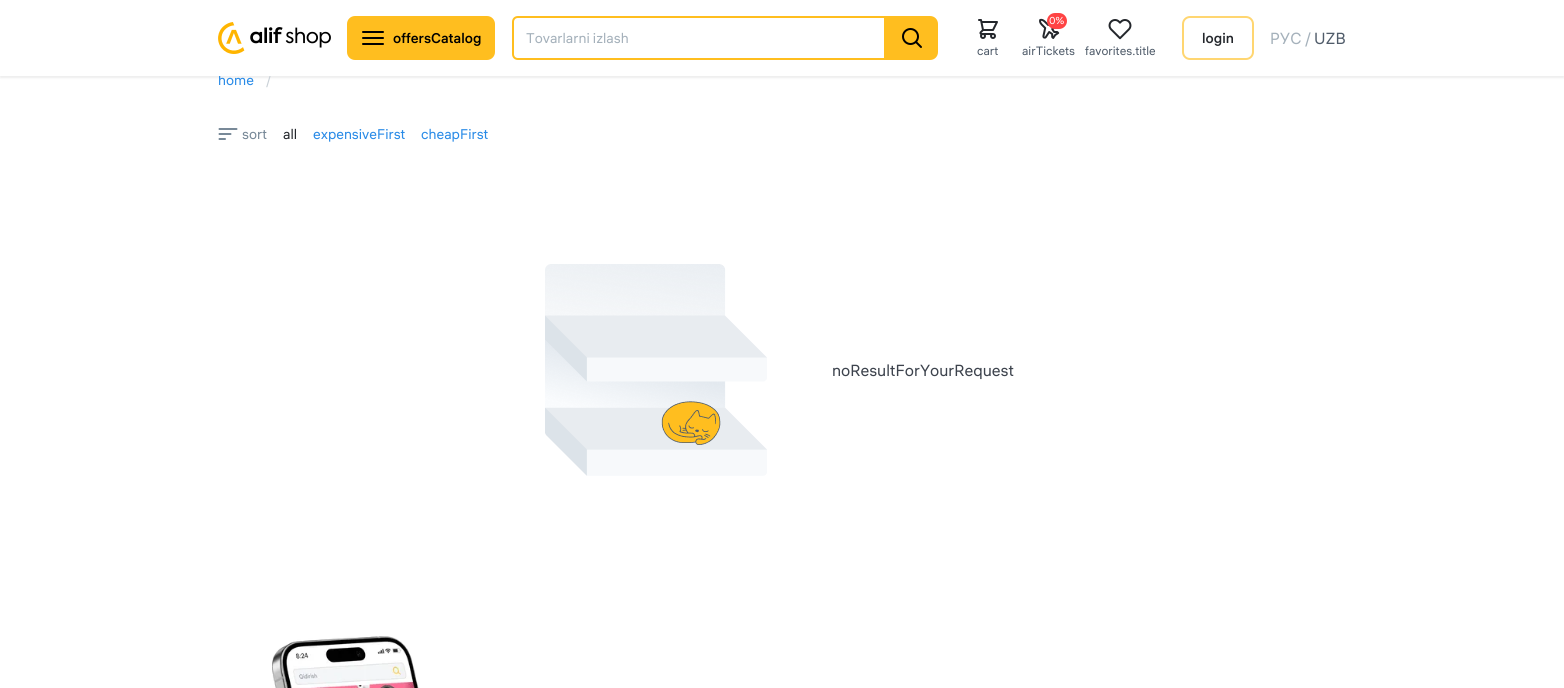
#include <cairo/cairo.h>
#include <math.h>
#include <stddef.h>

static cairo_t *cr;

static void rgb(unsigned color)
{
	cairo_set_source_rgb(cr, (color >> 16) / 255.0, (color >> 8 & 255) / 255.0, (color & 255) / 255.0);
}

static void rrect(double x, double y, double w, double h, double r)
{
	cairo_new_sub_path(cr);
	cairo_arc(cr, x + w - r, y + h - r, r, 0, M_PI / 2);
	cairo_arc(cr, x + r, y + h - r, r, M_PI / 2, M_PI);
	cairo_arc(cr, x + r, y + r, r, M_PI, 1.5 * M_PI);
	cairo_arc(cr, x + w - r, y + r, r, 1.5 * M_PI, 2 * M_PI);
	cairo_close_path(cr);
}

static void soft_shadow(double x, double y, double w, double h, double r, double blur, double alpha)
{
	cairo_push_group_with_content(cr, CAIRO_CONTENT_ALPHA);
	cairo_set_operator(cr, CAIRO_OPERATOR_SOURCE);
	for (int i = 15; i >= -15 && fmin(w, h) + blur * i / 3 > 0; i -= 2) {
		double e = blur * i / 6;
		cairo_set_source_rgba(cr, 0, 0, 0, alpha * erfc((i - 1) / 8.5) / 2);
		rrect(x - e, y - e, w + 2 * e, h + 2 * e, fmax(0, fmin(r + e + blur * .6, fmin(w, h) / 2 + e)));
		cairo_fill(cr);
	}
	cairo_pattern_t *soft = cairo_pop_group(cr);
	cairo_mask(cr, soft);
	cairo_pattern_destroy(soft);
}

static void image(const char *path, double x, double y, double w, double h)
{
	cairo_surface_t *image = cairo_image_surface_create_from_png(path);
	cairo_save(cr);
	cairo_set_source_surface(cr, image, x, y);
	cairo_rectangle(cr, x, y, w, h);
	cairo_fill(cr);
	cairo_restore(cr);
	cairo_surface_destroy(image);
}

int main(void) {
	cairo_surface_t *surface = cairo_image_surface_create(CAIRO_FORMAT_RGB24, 1564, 688);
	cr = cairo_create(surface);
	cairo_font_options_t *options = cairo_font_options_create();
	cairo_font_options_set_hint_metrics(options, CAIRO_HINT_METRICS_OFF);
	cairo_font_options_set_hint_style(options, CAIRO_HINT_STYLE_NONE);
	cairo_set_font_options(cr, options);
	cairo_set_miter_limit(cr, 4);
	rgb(0xffffff);
	cairo_paint(cr);
	rgb(0x000000);
	soft_shadow(0, 2, 1564, 76, 0, 1, 0.07);
	cairo_new_path(cr);
	cairo_move_to(cr, 219.5, 134);
	cairo_line_to(cr, 230.5, 134);
	cairo_move_to(cr, 219.5, 129);
	cairo_line_to(cr, 236.5, 129);
	cairo_move_to(cr, 219.5, 139);
	cairo_line_to(cr, 225, 139);
	rgb(0x788998);
	cairo_set_line_cap(cr, CAIRO_LINE_CAP_ROUND);
	cairo_set_line_join(cr, CAIRO_LINE_JOIN_ROUND);
	cairo_stroke(cr);
	image("img/6.png", 545, 264, 222, 212);
	image("img/7.png", 272, 636, 147, 52);
	cairo_select_font_face(cr, "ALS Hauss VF", CAIRO_FONT_SLANT_ITALIC, CAIRO_FONT_WEIGHT_NORMAL);
	cairo_set_font_size(cr, 14);
	rgb(0x2a8be7);
	cairo_move_to(cr, 218, 85);
	cairo_show_text(cr, "home");
	rgb(0xcad1d7);
	cairo_move_to(cr, 266, 85);
	cairo_show_text(cr, "/");
	rgb(0xffffff);
	cairo_rectangle(cr, 0, 1, 1564, 75);
	cairo_fill(cr);
	rrect(1183, 17, 70, 42, 7);
	rgb(0xffd671);
	cairo_set_line_cap(cr, CAIRO_LINE_CAP_BUTT);
	cairo_set_line_join(cr, CAIRO_LINE_JOIN_MITER);
	cairo_stroke(cr);
	cairo_select_font_face(cr, "ALS Hauss VF Medium", CAIRO_FONT_SLANT_ITALIC, CAIRO_FONT_WEIGHT_NORMAL);
	rgb(0x24272c);
	cairo_move_to(cr, 1202, 43);
	cairo_show_text(cr, "login");
	image("img/5.png", 1108, 19, 24, 21);
	image("img/4.png", 1039, 18, 21, 21);
	rgb(0xff4444);
	rrect(1047, 13, 20, 16, 8);
	cairo_fill(cr);
	cairo_select_font_face(cr, "ALS Hauss VF", CAIRO_FONT_SLANT_ITALIC, CAIRO_FONT_WEIGHT_NORMAL);
	cairo_set_font_size(cr, 10);
	rgb(0xffffff);
	cairo_move_to(cr, 1049, 24);
	cairo_show_text(cr, "0%");
	image("img/3.png", 978, 19, 20, 20);
	cairo_set_font_size(cr, 12);
	rgb(0x505c6a);
	cairo_move_to(cr, 977, 55);
	cairo_show_text(cr, "cart");
	rgb(0xffbe1f);
	cairo_new_path(cr);
	cairo_move_to(cr, 887, 17);
	cairo_line_to(cr, 930, 17);
	cairo_curve_to(cr, 934, 17, 937, 20, 937, 24);
	cairo_line_to(cr, 937, 52);
	cairo_curve_to(cr, 937, 56, 934, 59, 930, 59);
	cairo_line_to(cr, 887, 59);
	cairo_close_path(cr);
	cairo_fill_preserve(cr);
	cairo_stroke(cr);
	image("img/2.png", 902, 28, 20, 20);
	cairo_new_path(cr);
	cairo_move_to(cr, 518, 17);
	cairo_line_to(cr, 885, 17);
	cairo_line_to(cr, 885, 59);
	cairo_line_to(cr, 518, 59);
	cairo_curve_to(cr, 515, 59, 513, 57, 513, 54);
	cairo_line_to(cr, 513, 22);
	cairo_curve_to(cr, 513, 19, 515, 17, 518, 17);
	cairo_close_path(cr);
	cairo_stroke(cr);
	rgb(0xffffff);
	rrect(514, 18, 364, 40, 6);
	cairo_fill(cr);
	cairo_set_font_size(cr, 14);
	rgb(0xa5b1bb);
	cairo_move_to(cr, 526, 43);
	cairo_show_text(cr, "Tovarlarni izlash");
	rgb(0xffbe1f);
	rrect(348, 17, 146, 42, 7);
	cairo_fill_preserve(cr);
	cairo_stroke(cr);
	cairo_new_path(cr);
	cairo_move_to(cr, 363, 38);
	cairo_line_to(cr, 383, 38);
	cairo_move_to(cr, 363, 32);
	cairo_line_to(cr, 383, 32);
	cairo_move_to(cr, 363, 44);
	cairo_line_to(cr, 383, 44);
	rgb(0x000000);
	cairo_set_line_cap(cr, CAIRO_LINE_CAP_ROUND);
	cairo_set_line_join(cr, CAIRO_LINE_JOIN_ROUND);
	cairo_stroke(cr);
	cairo_select_font_face(cr, "ALS Hauss VF Medium", CAIRO_FONT_SLANT_ITALIC, CAIRO_FONT_WEIGHT_NORMAL);
	cairo_move_to(cr, 393, 43);
	cairo_show_text(cr, "offersCatalog");
	image("img/1.png", 218, 22, 113, 32);
	cairo_select_font_face(cr, "ALS Hauss VF", CAIRO_FONT_SLANT_ITALIC, CAIRO_FONT_WEIGHT_NORMAL);
	cairo_set_font_size(cr, 16);
	rgb(0x505c6a);
	cairo_move_to(cr, 1314, 44);
	cairo_show_text(cr, "UZB");
	rgb(0xa5b1bb);
	cairo_move_to(cr, 1270, 44);
	cairo_show_text(cr, "РУС /");
	cairo_set_font_size(cr, 12);
	rgb(0x505c6a);
	cairo_move_to(cr, 1085, 55);
	cairo_show_text(cr, "favorites.title");
	cairo_move_to(cr, 1022, 55);
	cairo_show_text(cr, "airTickets");
	cairo_set_font_size(cr, 14);
	rgb(0x788998);
	cairo_move_to(cr, 242, 139);
	cairo_show_text(cr, "sort");
	rgb(0x24272c);
	cairo_move_to(cr, 283, 139);
	cairo_show_text(cr, "all");
	rgb(0x2a8be7);
	cairo_move_to(cr, 313, 139);
	cairo_show_text(cr, "expensiveFirst");
	cairo_move_to(cr, 421, 139);
	cairo_show_text(cr, "cheapFirst");
	cairo_set_font_size(cr, 16);
	rgb(0x3d434d);
	cairo_move_to(cr, 832, 376);
	cairo_show_text(cr, "noResultForYourRequest");
	cairo_surface_write_to_png(surface, "page.png");
	cairo_font_options_destroy(options);
	cairo_destroy(cr);
	cairo_surface_destroy(surface);
	return 0;
}
